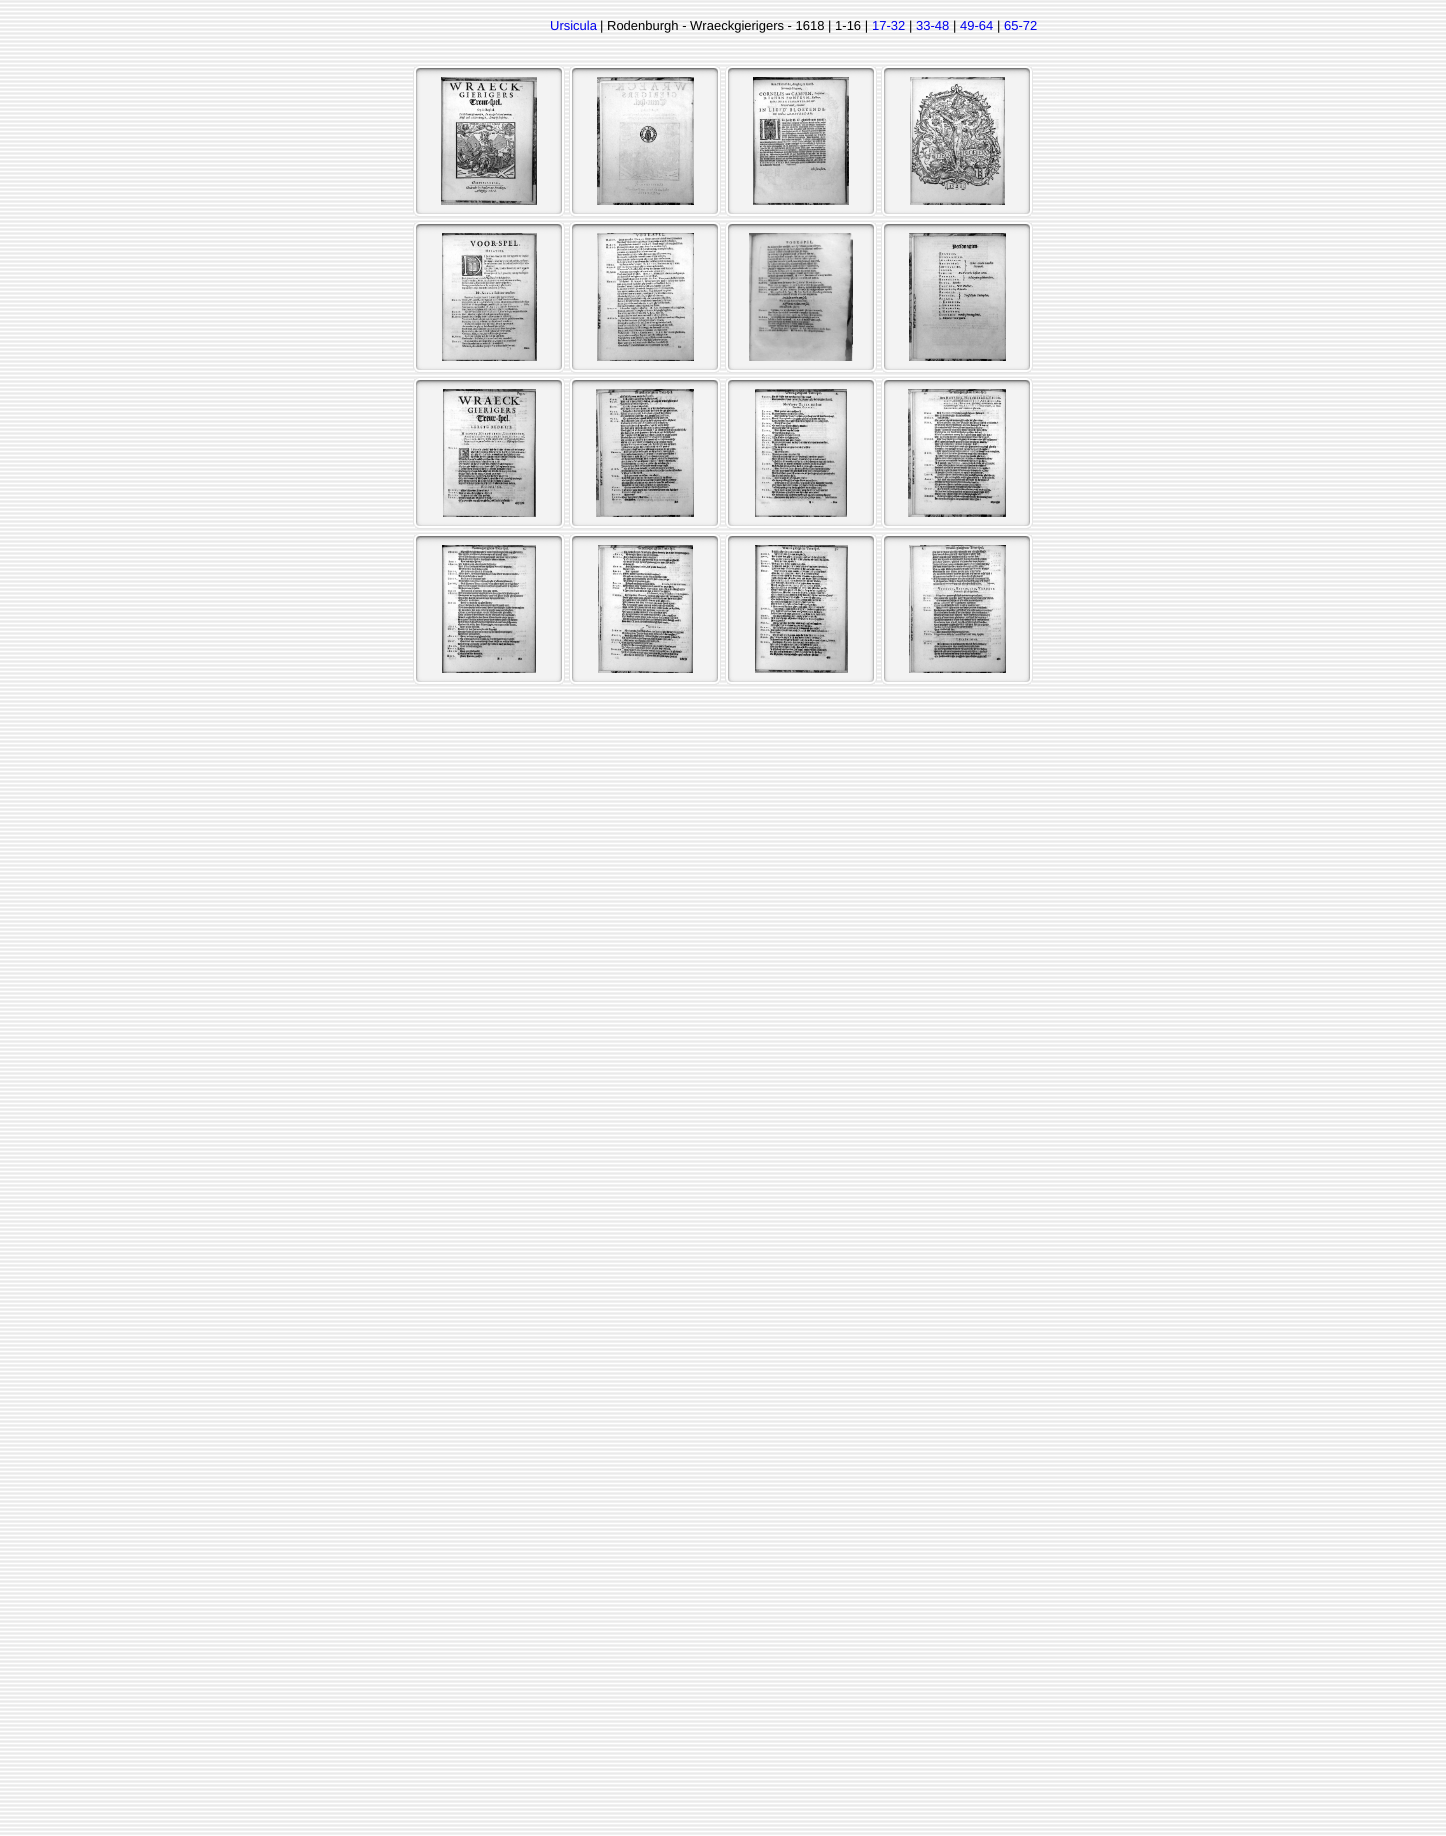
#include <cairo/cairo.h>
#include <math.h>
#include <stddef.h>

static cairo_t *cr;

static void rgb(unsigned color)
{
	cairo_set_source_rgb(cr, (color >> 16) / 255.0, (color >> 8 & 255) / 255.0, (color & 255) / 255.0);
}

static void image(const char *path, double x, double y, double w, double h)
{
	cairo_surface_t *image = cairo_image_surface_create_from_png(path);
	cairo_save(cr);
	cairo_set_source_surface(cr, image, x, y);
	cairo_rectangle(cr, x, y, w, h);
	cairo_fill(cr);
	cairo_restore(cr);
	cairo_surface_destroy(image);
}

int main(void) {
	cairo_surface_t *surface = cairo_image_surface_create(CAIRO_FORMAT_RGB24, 1446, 1836);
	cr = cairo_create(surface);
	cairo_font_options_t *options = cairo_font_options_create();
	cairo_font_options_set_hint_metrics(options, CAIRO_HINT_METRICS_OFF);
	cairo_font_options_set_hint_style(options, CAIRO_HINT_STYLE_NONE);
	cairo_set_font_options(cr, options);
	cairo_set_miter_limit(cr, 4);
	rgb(0xffffff);
	cairo_paint(cr);
	image("img/1.png", 0, 0, 1446, 1835);
	image("img/2.png", 413, 65, 152, 152);
	image("img/3.png", 441, 77, 96, 128);
	image("img/2.png", 569, 65, 152, 152);
	image("img/4.png", 597, 77, 97, 128);
	image("img/2.png", 725, 65, 152, 152);
	image("img/5.png", 753, 77, 96, 128);
	image("img/2.png", 881, 65, 152, 152);
	image("img/6.png", 910, 77, 95, 128);
	image("img/7.png", 413, 221, 152, 152);
	image("img/8.png", 442, 233, 95, 128);
	image("img/7.png", 569, 221, 152, 152);
	image("img/9.png", 597, 233, 97, 128);
	image("img/7.png", 725, 221, 152, 152);
	image("img/10.png", 749, 233, 104, 128);
	image("img/7.png", 881, 221, 152, 152);
	image("img/11.png", 909, 233, 97, 128);
	image("img/7.png", 413, 377, 152, 152);
	image("img/12.png", 443, 389, 93, 128);
	image("img/7.png", 569, 377, 152, 152);
	image("img/13.png", 596, 389, 98, 128);
	image("img/7.png", 725, 377, 152, 152);
	image("img/14.png", 755, 389, 92, 128);
	image("img/7.png", 881, 377, 152, 152);
	image("img/15.png", 908, 389, 98, 128);
	image("img/2.png", 413, 533, 152, 152);
	image("img/16.png", 442, 545, 94, 128);
	image("img/2.png", 569, 533, 152, 152);
	image("img/17.png", 598, 545, 95, 128);
	image("img/2.png", 725, 533, 152, 152);
	image("img/18.png", 755, 545, 93, 128);
	image("img/2.png", 881, 533, 152, 152);
	image("img/19.png", 909, 545, 97, 128);
	cairo_select_font_face(cr, "Liberation Sans", CAIRO_FONT_SLANT_NORMAL, CAIRO_FONT_WEIGHT_NORMAL);
	cairo_set_font_size(cr, 13);
	rgb(0x0000ee);
	cairo_move_to(cr, 550, 30);
	cairo_show_text(cr, "Ursicula");
	rgb(0x000000);
	cairo_move_to(cr, 600, 30);
	cairo_show_text(cr, "| Rodenburgh - Wraeckgierigers - 1618 | 1-16 |");
	rgb(0x0000ee);
	cairo_move_to(cr, 872, 30);
	cairo_show_text(cr, "17-32");
	rgb(0x000000);
	cairo_move_to(cr, 909, 30);
	cairo_show_text(cr, "|");
	rgb(0x0000ee);
	cairo_move_to(cr, 916, 30);
	cairo_show_text(cr, "33-48");
	rgb(0x000000);
	cairo_move_to(cr, 953, 30);
	cairo_show_text(cr, "|");
	rgb(0x0000ee);
	cairo_move_to(cr, 960, 30);
	cairo_show_text(cr, "49-64");
	rgb(0x000000);
	cairo_move_to(cr, 997, 30);
	cairo_show_text(cr, "|");
	rgb(0x0000ee);
	cairo_move_to(cr, 1004, 30);
	cairo_show_text(cr, "65-72");
	cairo_surface_write_to_png(surface, "page.png");
	cairo_font_options_destroy(options);
	cairo_destroy(cr);
	cairo_surface_destroy(surface);
	return 0;
}
